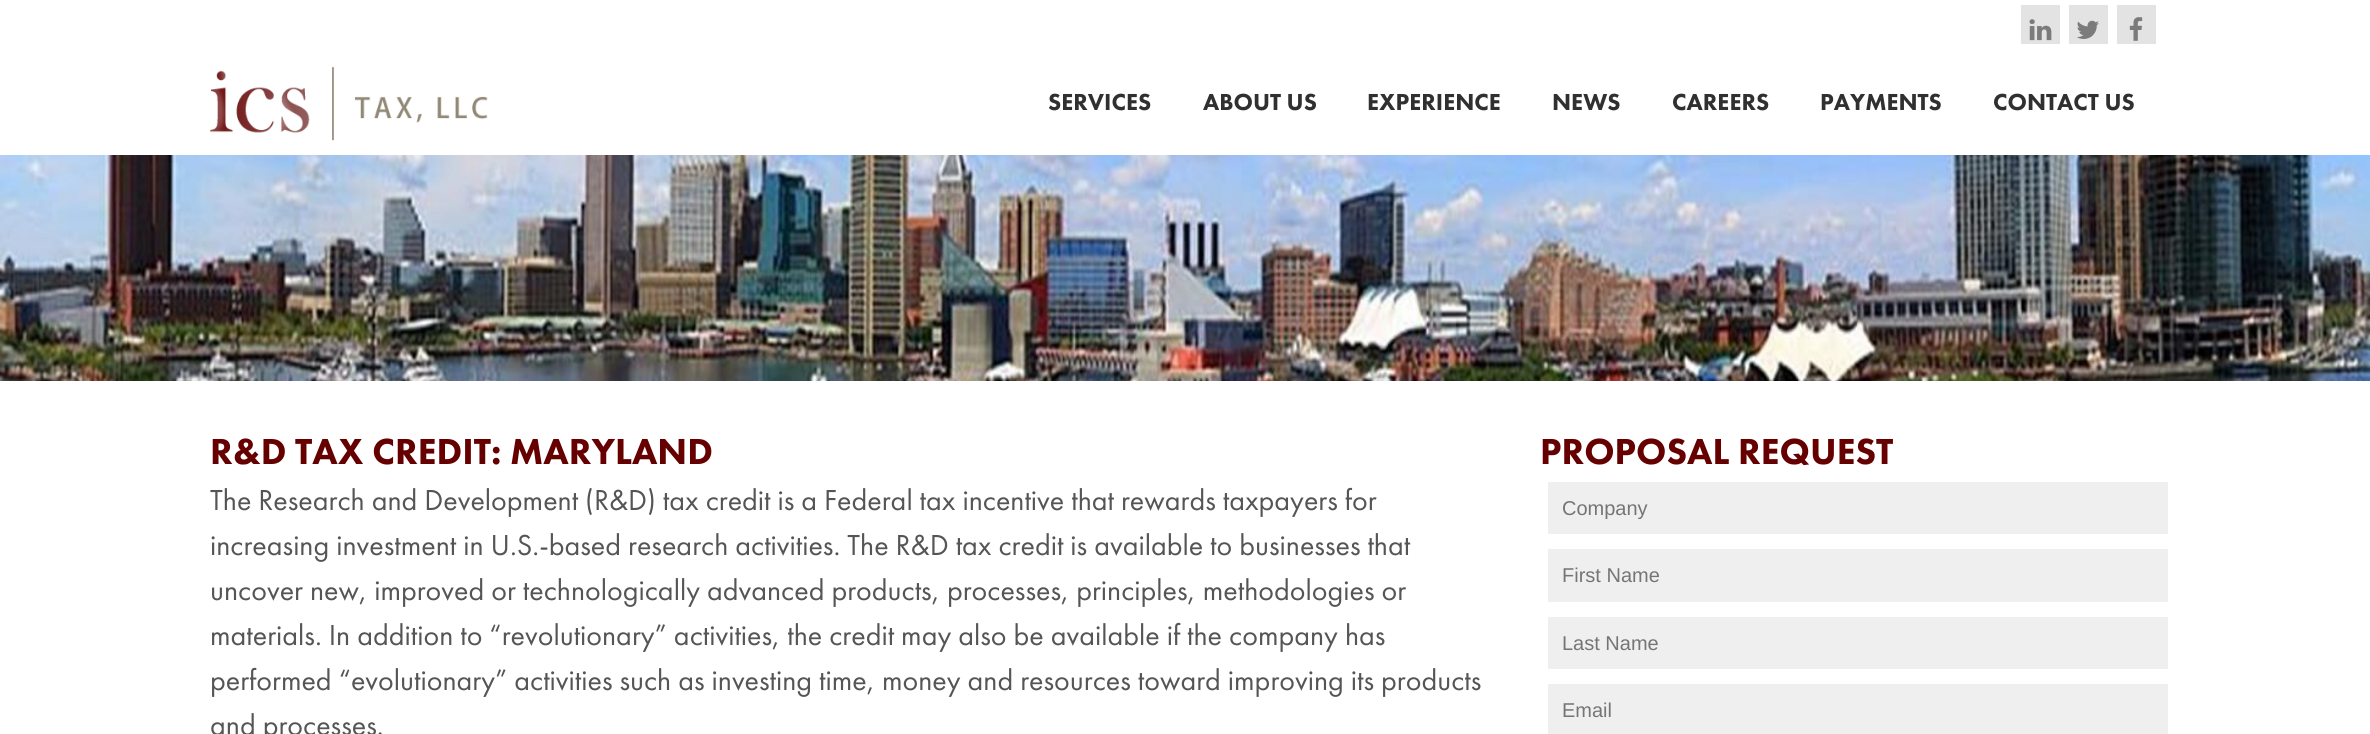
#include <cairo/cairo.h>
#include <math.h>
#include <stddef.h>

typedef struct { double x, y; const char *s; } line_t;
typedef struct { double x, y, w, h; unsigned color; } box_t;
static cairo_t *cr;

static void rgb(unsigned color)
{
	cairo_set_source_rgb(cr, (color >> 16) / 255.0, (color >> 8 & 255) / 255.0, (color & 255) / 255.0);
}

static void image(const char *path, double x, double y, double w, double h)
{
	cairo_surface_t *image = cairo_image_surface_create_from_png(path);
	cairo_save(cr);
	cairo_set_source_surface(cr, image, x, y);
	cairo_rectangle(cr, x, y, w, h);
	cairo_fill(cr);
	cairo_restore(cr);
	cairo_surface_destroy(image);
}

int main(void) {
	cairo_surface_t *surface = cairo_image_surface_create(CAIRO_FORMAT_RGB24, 2370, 734);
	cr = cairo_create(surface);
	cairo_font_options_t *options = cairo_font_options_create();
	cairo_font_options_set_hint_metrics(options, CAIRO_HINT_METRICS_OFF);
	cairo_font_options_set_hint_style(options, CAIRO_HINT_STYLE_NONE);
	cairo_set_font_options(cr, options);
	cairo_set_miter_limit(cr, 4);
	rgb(0xffffff);
	cairo_paint(cr);
	rgb(0xe3e3e3);
	cairo_rectangle(cr, 2021, 5, 39, 39);
	cairo_fill(cr);
	image("img/1.png", 2029, 19, 23, 22);
	cairo_rectangle(cr, 2069, 5, 39, 39);
	cairo_fill(cr);
	image("img/2.png", 2077, 20, 22, 19);
	cairo_rectangle(cr, 2117, 5, 39, 39);
	cairo_fill(cr);
	image("img/3.png", 2129, 17, 14, 24);
	image("img/4.png", 210, 67, 278, 74);
	image("img/5.png", 0, 155, 2370, 226);
	{
		static const box_t items[] = {
			{1548, 482, 620, 52, 0xefefef},
			{1548, 549, 620, 53, 0xefefef},
			{1548, 617, 620, 52, 0xefefef},
			{1548, 684, 620, 50, 0xefefef},
		};
		for (size_t i = 0; i < sizeof items / sizeof *items; i++) {
			rgb(items[i].color);
			cairo_rectangle(cr, items[i].x, items[i].y, items[i].w, items[i].h);
			cairo_fill(cr);
		}
	}
	cairo_select_font_face(cr, "Futura PT Black", CAIRO_FONT_SLANT_NORMAL, CAIRO_FONT_WEIGHT_NORMAL);
	cairo_set_font_size(cr, 24);
	rgb(0x303030);
	{
		static const line_t items[] = {
			{1048, 110, "SERVICES"},
			{1203, 110, "ABOUT US"},
			{1367, 110, "EXPERIENCE"},
			{1552, 110, "NEWS"},
			{1672, 110, "CAREERS"},
			{1820, 110, "PAYMENTS"},
			{1993, 110, "CONTACT US"},
		};
		for (size_t i = 0; i < sizeof items / sizeof *items; i++) {
			cairo_move_to(cr, items[i].x, items[i].y);
			cairo_show_text(cr, items[i].s);
		}
	}
	cairo_set_font_size(cr, 37.5);
	rgb(0x660000);
	cairo_move_to(cr, 210, 464);
	cairo_show_text(cr, "R&D TAX CREDIT: MARYLAND");
	cairo_select_font_face(cr, "Futura PT", CAIRO_FONT_SLANT_NORMAL, CAIRO_FONT_WEIGHT_NORMAL);
	cairo_set_font_size(cr, 30);
	rgb(0x555555);
	{
		static const line_t items[] = {
			{210, 510, "The Research and Development (R&D) tax credit is a Federal tax incentive that rewards taxpayers for"},
			{210, 555, "increasing investment in U.S.-based research activities. The R&D tax credit is available to businesses that"},
			{210, 600, "uncover new, improved or technologically advanced products, processes, principles, methodologies or"},
			{210, 645, "materials. In addition to “revolutionary” activities, the credit may also be available if the company has"},
			{210, 690, "performed “evolutionary” activities such as investing time, money and resources toward improving its products"},
			{210, 735, "and processes."},
		};
		for (size_t i = 0; i < sizeof items / sizeof *items; i++) {
			cairo_move_to(cr, items[i].x, items[i].y);
			cairo_show_text(cr, items[i].s);
		}
	}
	cairo_select_font_face(cr, "Futura PT Black", CAIRO_FONT_SLANT_NORMAL, CAIRO_FONT_WEIGHT_NORMAL);
	cairo_set_font_size(cr, 37.5);
	rgb(0x660000);
	cairo_move_to(cr, 1540, 464);
	cairo_show_text(cr, "PROPOSAL REQUEST");
	cairo_save(cr);
	cairo_rectangle(cr, 1563, 497, 590, 22);
	cairo_clip(cr);
	cairo_select_font_face(cr, "Liberation Sans", CAIRO_FONT_SLANT_NORMAL, CAIRO_FONT_WEIGHT_NORMAL);
	cairo_set_font_size(cr, 20);
	rgb(0x757575);
	cairo_move_to(cr, 1562, 515);
	cairo_show_text(cr, "Company");
	cairo_restore(cr);
	cairo_select_font_face(cr, "Liberation Sans", CAIRO_FONT_SLANT_NORMAL, CAIRO_FONT_WEIGHT_NORMAL);
	cairo_set_font_size(cr, 20);
	rgb(0x757575);
	{
		static const line_t items[] = {
			{1562, 582, "First Name"},
			{1562, 650, "Last Name"},
			{1562, 717, "Email"},
		};
		for (size_t i = 0; i < sizeof items / sizeof *items; i++) {
			cairo_move_to(cr, items[i].x, items[i].y);
			cairo_show_text(cr, items[i].s);
		}
	}
	cairo_surface_write_to_png(surface, "page.png");
	cairo_font_options_destroy(options);
	cairo_destroy(cr);
	cairo_surface_destroy(surface);
	return 0;
}
